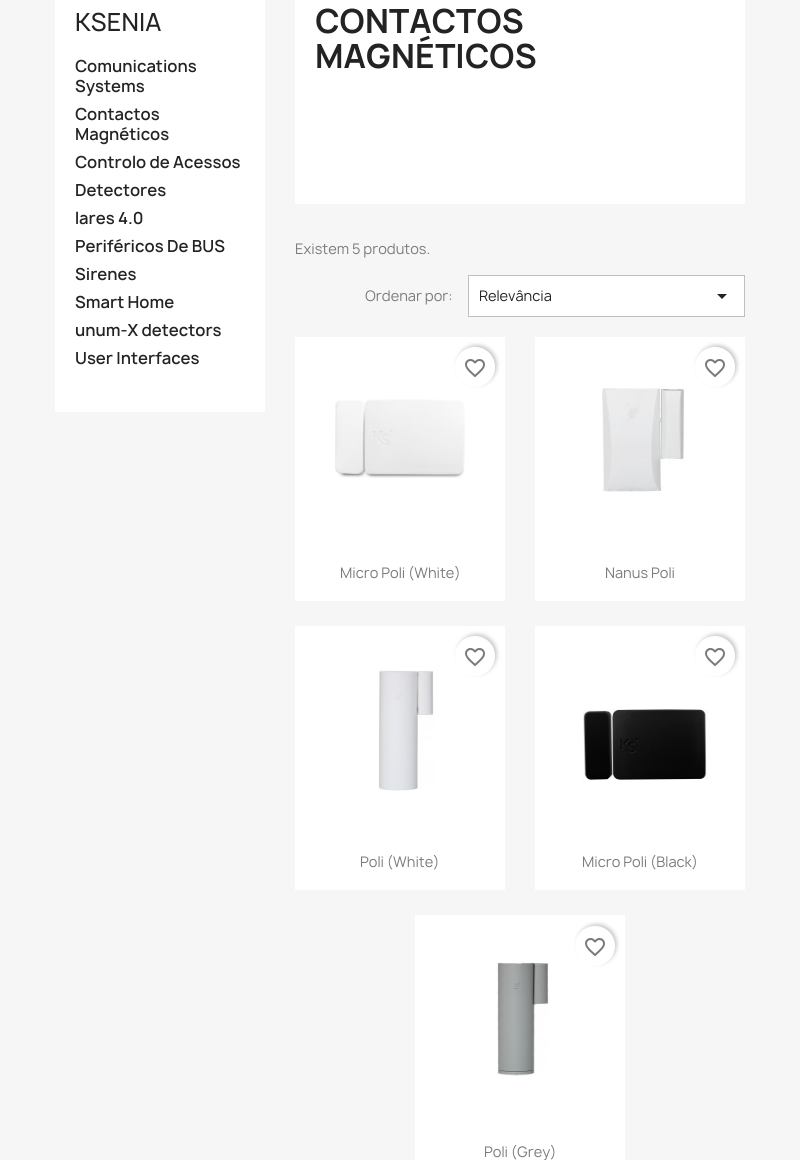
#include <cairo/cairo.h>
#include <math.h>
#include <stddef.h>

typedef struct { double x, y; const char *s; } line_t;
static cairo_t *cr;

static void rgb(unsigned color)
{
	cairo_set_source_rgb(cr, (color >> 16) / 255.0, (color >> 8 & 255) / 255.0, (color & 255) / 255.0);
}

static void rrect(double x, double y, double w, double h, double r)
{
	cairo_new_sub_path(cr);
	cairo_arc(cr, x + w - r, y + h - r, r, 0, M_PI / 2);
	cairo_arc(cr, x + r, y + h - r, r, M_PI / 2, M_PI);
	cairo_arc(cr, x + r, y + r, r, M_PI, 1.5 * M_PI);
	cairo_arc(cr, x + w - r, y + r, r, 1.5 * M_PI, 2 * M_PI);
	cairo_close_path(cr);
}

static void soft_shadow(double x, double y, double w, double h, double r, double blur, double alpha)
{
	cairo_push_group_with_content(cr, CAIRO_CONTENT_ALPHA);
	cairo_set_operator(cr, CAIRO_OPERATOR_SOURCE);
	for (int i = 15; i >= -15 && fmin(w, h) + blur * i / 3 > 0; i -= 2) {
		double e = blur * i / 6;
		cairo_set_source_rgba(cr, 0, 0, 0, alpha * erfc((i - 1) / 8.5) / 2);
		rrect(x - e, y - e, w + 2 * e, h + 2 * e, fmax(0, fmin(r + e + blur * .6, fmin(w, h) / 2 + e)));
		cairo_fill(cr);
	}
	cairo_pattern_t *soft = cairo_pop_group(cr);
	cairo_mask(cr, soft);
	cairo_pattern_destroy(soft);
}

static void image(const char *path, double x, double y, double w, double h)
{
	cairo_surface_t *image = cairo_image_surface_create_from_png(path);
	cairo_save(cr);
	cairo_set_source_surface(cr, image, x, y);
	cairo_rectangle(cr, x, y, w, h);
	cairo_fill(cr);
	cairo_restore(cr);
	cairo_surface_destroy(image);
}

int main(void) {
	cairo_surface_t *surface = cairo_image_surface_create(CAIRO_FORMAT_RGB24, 800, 1160);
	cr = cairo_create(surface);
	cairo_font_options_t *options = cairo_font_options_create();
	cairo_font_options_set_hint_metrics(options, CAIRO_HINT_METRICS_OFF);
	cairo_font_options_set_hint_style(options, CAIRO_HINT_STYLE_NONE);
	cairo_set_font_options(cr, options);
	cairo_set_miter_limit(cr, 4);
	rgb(0xf6f6f6);
	cairo_paint(cr);
	rgb(0xffffff);
	cairo_rectangle(cr, 55, 0, 210, 412);
	cairo_fill(cr);
	cairo_rectangle(cr, 295, 0, 450, 204);
	cairo_fill(cr);
	cairo_rectangle(cr, 468.5, 275.5, 276, 41);
	cairo_fill_preserve(cr);
	rgb(0xbfbfbf);
	cairo_set_line_width(cr, 1);
	cairo_stroke(cr);
	rgb(0x232323);
	cairo_new_path(cr);
	cairo_move_to(cr, 717, 294);
	cairo_line_to(cr, 727, 294);
	cairo_line_to(cr, 722, 299);
	cairo_close_path(cr);
	cairo_fill(cr);
	rgb(0xffffff);
	cairo_rectangle(cr, 295, 337, 210, 264);
	cairo_fill(cr);
	rgb(0x000000);
	soft_shadow(457, 345, 40, 40, 20, 2, 0.2);
	rgb(0xffffff);
	cairo_arc(cr, 475, 367, 20, 0, 2 * M_PI);
	cairo_fill(cr);
	image("img/1.png", 465, 359, 20, 19);
	image("img/2.png", 335, 399, 130, 79);
	cairo_rectangle(cr, 535, 337, 210, 264);
	cairo_fill(cr);
	rgb(0x000000);
	soft_shadow(697, 345, 40, 40, 20, 2, 0.2);
	rgb(0xffffff);
	cairo_arc(cr, 715, 367, 20, 0, 2 * M_PI);
	cairo_fill(cr);
	image("img/1.png", 705, 359, 20, 19);
	image("img/3.png", 602, 388, 83, 104);
	cairo_rectangle(cr, 295, 626, 210, 264);
	cairo_fill(cr);
	rgb(0x000000);
	soft_shadow(457, 634, 40, 40, 20, 2, 0.2);
	rgb(0xffffff);
	cairo_arc(cr, 475, 656, 20, 0, 2 * M_PI);
	cairo_fill(cr);
	image("img/1.png", 465, 648, 20, 19);
	image("img/4.png", 378, 670, 57, 121);
	cairo_rectangle(cr, 535, 626, 210, 264);
	cairo_fill(cr);
	rgb(0x000000);
	soft_shadow(697, 634, 40, 40, 20, 2, 0.2);
	rgb(0xffffff);
	cairo_arc(cr, 715, 656, 20, 0, 2 * M_PI);
	cairo_fill(cr);
	image("img/1.png", 705, 648, 20, 19);
	image("img/5.png", 583, 709, 126, 71);
	cairo_rectangle(cr, 415, 915, 210, 245);
	cairo_fill(cr);
	rgb(0x000000);
	soft_shadow(577, 924, 40, 40, 20, 2, 0.2);
	rgb(0xffffff);
	cairo_arc(cr, 595, 946, 20, 0, 2 * M_PI);
	cairo_fill(cr);
	image("img/1.png", 585, 938, 20, 19);
	image("img/6.png", 497, 962, 52, 114);
	cairo_select_font_face(cr, "Manrope Medium", CAIRO_FONT_SLANT_NORMAL, CAIRO_FONT_WEIGHT_NORMAL);
	cairo_set_font_size(cr, 24);
	rgb(0x232323);
	cairo_move_to(cr, 75, 31);
	cairo_show_text(cr, "KSENIA");
	cairo_select_font_face(cr, "Manrope SemiBold", CAIRO_FONT_SLANT_NORMAL, CAIRO_FONT_WEIGHT_NORMAL);
	cairo_set_font_size(cr, 16);
	{
		static const line_t items[] = {
			{75, 72, "Comunications"},
			{75, 92, "Systems"},
			{75, 120, "Contactos"},
			{75, 140, "Magnéticos"},
			{75, 168, "Controlo de Acessos"},
			{75, 196, "Detectores"},
			{75, 224, "lares 4.0"},
			{75, 252, "Periféricos De BUS"},
			{75, 280, "Sirenes"},
			{75, 308, "Smart Home"},
			{75, 336, "unum-X detectors"},
			{75, 364, "User Interfaces"},
		};
		for (size_t i = 0; i < sizeof items / sizeof *items; i++) {
			cairo_move_to(cr, items[i].x, items[i].y);
			cairo_show_text(cr, items[i].s);
		}
	}
	cairo_select_font_face(cr, "Manrope", CAIRO_FONT_SLANT_NORMAL, CAIRO_FONT_WEIGHT_BOLD);
	cairo_set_font_size(cr, 32);
	cairo_move_to(cr, 315, 33);
	cairo_show_text(cr, "CONTACTOS");
	cairo_move_to(cr, 315, 68);
	cairo_show_text(cr, "MAGNÉTICOS");
	cairo_select_font_face(cr, "Manrope", CAIRO_FONT_SLANT_NORMAL, CAIRO_FONT_WEIGHT_NORMAL);
	cairo_set_font_size(cr, 14);
	rgb(0x7a7a7a);
	cairo_move_to(cr, 295, 254);
	cairo_show_text(cr, "Existem 5 produtos.");
	cairo_move_to(cr, 365, 301);
	cairo_show_text(cr, "Ordenar por:");
	rgb(0x232323);
	cairo_move_to(cr, 479, 301);
	cairo_show_text(cr, "Relevância");
	rgb(0x7a7a7a);
	{
		static const line_t items[] = {
			{340, 578, "Micro Poli (White)"},
			{605, 578, "Nanus Poli"},
			{360, 867, "Poli (White)"},
			{582, 867, "Micro Poli (Black)"},
			{484, 1157, "Poli (Grey)"},
		};
		for (size_t i = 0; i < sizeof items / sizeof *items; i++) {
			cairo_move_to(cr, items[i].x, items[i].y);
			cairo_show_text(cr, items[i].s);
		}
	}
	cairo_surface_write_to_png(surface, "page.png");
	cairo_font_options_destroy(options);
	cairo_destroy(cr);
	cairo_surface_destroy(surface);
	return 0;
}
